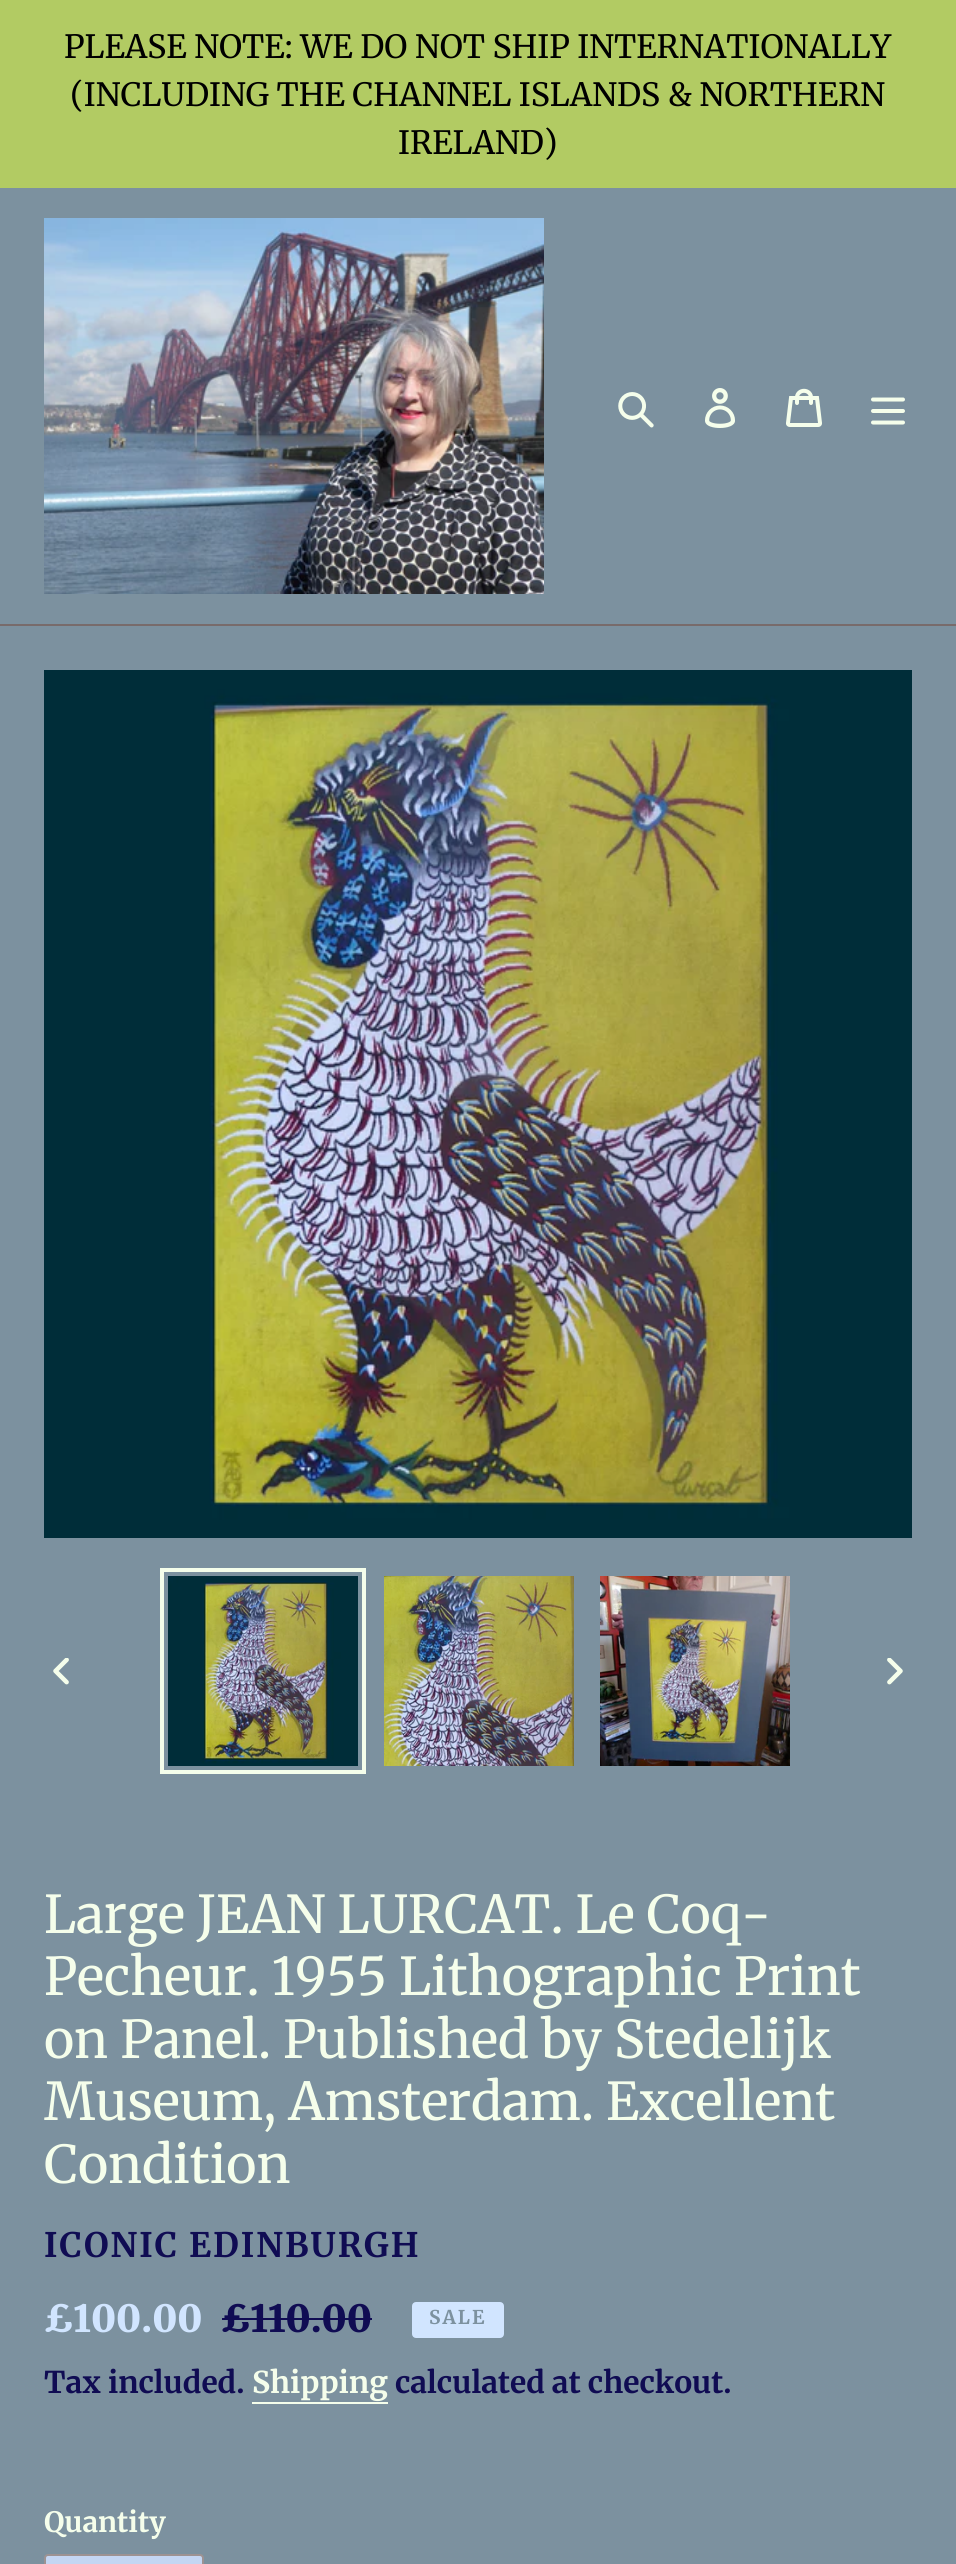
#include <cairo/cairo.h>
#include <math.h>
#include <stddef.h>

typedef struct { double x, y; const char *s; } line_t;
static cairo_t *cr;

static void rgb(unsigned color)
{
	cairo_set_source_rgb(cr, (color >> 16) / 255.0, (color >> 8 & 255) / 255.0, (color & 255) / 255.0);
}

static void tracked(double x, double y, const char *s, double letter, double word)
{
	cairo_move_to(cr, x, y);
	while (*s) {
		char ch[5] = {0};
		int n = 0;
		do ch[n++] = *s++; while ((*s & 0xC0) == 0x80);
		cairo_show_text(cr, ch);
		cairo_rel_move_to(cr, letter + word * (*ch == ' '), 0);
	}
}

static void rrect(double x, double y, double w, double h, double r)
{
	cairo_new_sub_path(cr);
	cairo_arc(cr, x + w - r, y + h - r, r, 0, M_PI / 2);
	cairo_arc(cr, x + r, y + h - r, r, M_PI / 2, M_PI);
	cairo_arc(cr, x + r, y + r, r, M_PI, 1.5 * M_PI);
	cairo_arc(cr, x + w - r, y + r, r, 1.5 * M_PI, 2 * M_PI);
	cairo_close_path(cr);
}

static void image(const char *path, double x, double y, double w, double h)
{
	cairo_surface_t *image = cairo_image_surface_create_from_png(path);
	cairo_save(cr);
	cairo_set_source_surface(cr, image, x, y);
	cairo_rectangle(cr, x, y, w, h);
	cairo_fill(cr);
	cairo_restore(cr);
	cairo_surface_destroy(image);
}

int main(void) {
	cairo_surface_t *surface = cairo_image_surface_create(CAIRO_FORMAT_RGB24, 956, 2564);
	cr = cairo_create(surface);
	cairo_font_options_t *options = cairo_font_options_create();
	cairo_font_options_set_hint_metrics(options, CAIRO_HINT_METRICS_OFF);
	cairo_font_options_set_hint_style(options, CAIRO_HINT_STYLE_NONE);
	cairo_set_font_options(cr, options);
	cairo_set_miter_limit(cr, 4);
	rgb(0x7c919f);
	cairo_paint(cr);
	rgb(0xb2cb63);
	cairo_rectangle(cr, 0, 0, 956, 188);
	cairo_fill(cr);
	rgb(0x786b6b);
	cairo_rectangle(cr, 0, 624, 956, 2);
	cairo_fill(cr);
	image("img/1.png", 44, 218, 500, 376);
	image("img/2.png", 618, 392, 36, 36);
	image("img/3.png", 705, 388, 30, 40);
	image("img/4.png", 786, 388, 36, 39);
	image("img/5.png", 871, 397, 34, 28);
	image("img/6.png", 44, 670, 868, 868);
	image("img/7.png", 53, 1658, 16, 27);
	cairo_rectangle(cr, 162, 1570, 202, 202);
	rgb(0xf5feeb);
	cairo_set_line_width(cr, 4);
	cairo_stroke(cr);
	image("img/8.png", 168, 1576, 190, 190);
	image("img/9.png", 384, 1576, 190, 190);
	image("img/10.png", 600, 1576, 190, 190);
	image("img/11.png", 887, 1658, 16, 27);
	rgb(0x100c53);
	cairo_rectangle(cr, 222, 2318, 150, 2);
	cairo_fill(cr);
	rgb(0xd1e5ff);
	rrect(413, 2303, 90, 34, 3);
	cairo_fill_preserve(cr);
	cairo_set_line_width(cr, 2);
	cairo_stroke(cr);
	rgb(0xf5feeb);
	cairo_rectangle(cr, 252, 2402, 136, 2);
	cairo_fill(cr);
	rgb(0xc4d6f3);
	rrect(45, 2555, 158, 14, 3);
	cairo_fill_preserve(cr);
	rgb(0x9d9292);
	cairo_stroke(cr);
	cairo_select_font_face(cr, "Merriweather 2", CAIRO_FONT_SLANT_NORMAL, CAIRO_FONT_WEIGHT_NORMAL);
	cairo_set_font_size(cr, 32);
	rgb(0x000000);
	{
		static const line_t items[] = {
			{64, 58, "PLEASE NOTE: WE DO NOT SHIP INTERNATIONALLY"},
			{70, 106, "(INCLUDING THE CHANNEL ISLANDS & NORTHERN"},
			{398, 154, "IRELAND)"},
		};
		for (size_t i = 0; i < sizeof items / sizeof *items; i++) {
			cairo_move_to(cr, items[i].x, items[i].y);
			cairo_show_text(cr, items[i].s);
		}
	}
	cairo_select_font_face(cr, "Merriweather", CAIRO_FONT_SLANT_NORMAL, CAIRO_FONT_WEIGHT_NORMAL);
	cairo_set_font_size(cr, 52);
	rgb(0xf5feeb);
	{
		static const line_t items[] = {
			{44, 1933, "Large JEAN LURCAT. Le Coq-"},
			{44, 1995, "Pecheur. 1955 Lithographic Print"},
			{44, 2058, "on Panel. Published by Stedelijk"},
			{44, 2120, "Museum, Amsterdam. Excellent"},
			{44, 2183, "Condition"},
		};
		for (size_t i = 0; i < sizeof items / sizeof *items; i++) {
			cairo_move_to(cr, items[i].x, items[i].y);
			cairo_show_text(cr, items[i].s);
		}
	}
	cairo_select_font_face(cr, "Merriweather", CAIRO_FONT_SLANT_NORMAL, CAIRO_FONT_WEIGHT_BOLD);
	cairo_set_font_size(cr, 33.75);
	rgb(0x100c53);
	tracked(44, 2257, "ICONIC EDINBURGH", 2, 0);
	cairo_select_font_face(cr, "Merriweather Black", CAIRO_FONT_SLANT_NORMAL, CAIRO_FONT_WEIGHT_NORMAL);
	cairo_set_font_size(cr, 37.5);
	rgb(0xd1e5ff);
	cairo_move_to(cr, 44, 2332);
	cairo_show_text(cr, "£100.00");
	rgb(0x100c53);
	cairo_move_to(cr, 221, 2332);
	cairo_show_text(cr, "£110.00");
	cairo_select_font_face(cr, "Merriweather", CAIRO_FONT_SLANT_NORMAL, CAIRO_FONT_WEIGHT_BOLD);
	cairo_set_font_size(cr, 19);
	rgb(0x7c919f);
	tracked(429, 2324, "SALE", 2, 0);
	cairo_set_font_size(cr, 30);
	rgb(0x100c53);
	cairo_move_to(cr, 44, 2393);
	cairo_show_text(cr, "Tax included.");
	rgb(0xf5feeb);
	cairo_move_to(cr, 252, 2393);
	cairo_show_text(cr, "Shipping");
	rgb(0x100c53);
	cairo_move_to(cr, 395, 2393);
	cairo_show_text(cr, "calculated at checkout.");
	cairo_set_font_size(cr, 28);
	rgb(0xf5feeb);
	cairo_move_to(cr, 44, 2532);
	cairo_show_text(cr, "Quantity");
	cairo_surface_write_to_png(surface, "page.png");
	cairo_font_options_destroy(options);
	cairo_destroy(cr);
	cairo_surface_destroy(surface);
	return 0;
}
